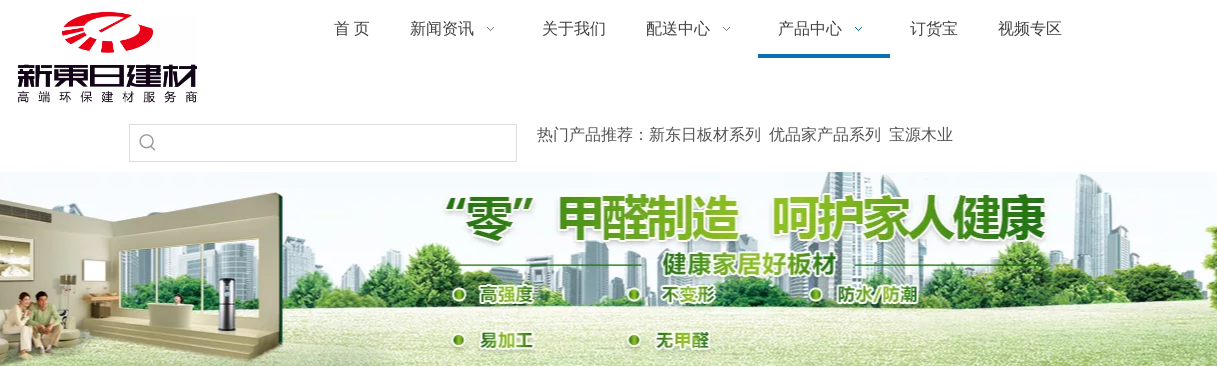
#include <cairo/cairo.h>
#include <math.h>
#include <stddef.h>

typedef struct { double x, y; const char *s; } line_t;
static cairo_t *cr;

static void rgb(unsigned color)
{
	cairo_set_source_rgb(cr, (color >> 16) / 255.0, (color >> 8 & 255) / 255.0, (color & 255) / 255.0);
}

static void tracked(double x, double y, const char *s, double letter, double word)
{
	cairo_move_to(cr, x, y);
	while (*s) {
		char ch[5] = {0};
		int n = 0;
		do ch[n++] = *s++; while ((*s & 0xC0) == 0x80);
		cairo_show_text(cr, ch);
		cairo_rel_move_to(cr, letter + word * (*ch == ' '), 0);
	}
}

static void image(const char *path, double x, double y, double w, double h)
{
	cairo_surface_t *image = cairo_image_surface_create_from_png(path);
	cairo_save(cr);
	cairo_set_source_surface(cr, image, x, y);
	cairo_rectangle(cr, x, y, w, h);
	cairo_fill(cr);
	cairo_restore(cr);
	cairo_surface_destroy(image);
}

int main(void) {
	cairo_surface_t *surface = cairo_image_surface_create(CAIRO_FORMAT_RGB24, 1217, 366);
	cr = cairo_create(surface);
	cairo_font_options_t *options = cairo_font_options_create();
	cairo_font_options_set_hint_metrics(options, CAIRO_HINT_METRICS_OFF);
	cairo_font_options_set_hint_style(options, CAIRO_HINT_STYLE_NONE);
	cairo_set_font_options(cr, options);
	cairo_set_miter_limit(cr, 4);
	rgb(0xffffff);
	cairo_paint(cr);
	image("img/1.png", 17, 11, 181, 92);
	image("img/2.png", 487, 27, 7, 4);
	image("img/2.png", 723, 27, 7, 4);
	rgb(0x0c6fb3);
	cairo_rectangle(cr, 758, 54, 132, 4);
	cairo_fill(cr);
	image("img/3.png", 855, 27, 7, 4);
	cairo_rectangle(cr, 129.5, 124.5, 387, 37);
	rgb(0xdddddd);
	cairo_set_line_width(cr, 1);
	cairo_stroke(cr);
	image("img/4.png", 139, 134, 16, 17);
	image("img/5.png", 0, 172, 1217, 194);
	cairo_select_font_face(cr, "WenQuanYi Zen Hei Medium", CAIRO_FONT_SLANT_NORMAL, CAIRO_FONT_WEIGHT_NORMAL);
	cairo_set_font_size(cr, 16);
	rgb(0x404040);
	tracked(334, 34, "首 页", 0, -1);
	{
		static const line_t items[] = {
			{410, 34, "新闻资讯"},
			{542, 34, "关于我们"},
			{646, 34, "配送中心"},
			{778, 34, "产品中心"},
			{910, 34, "订货宝"},
			{998, 34, "视频专区"},
		};
		for (size_t i = 0; i < sizeof items / sizeof *items; i++) {
			cairo_move_to(cr, items[i].x, items[i].y);
			cairo_show_text(cr, items[i].s);
		}
	}
	rgb(0x545454);
	{
		static const line_t items[] = {
			{537, 140, "热门产品推荐：新东日板材系列"},
			{769, 140, "优品家产品系列"},
			{889, 140, "宝源木业"},
		};
		for (size_t i = 0; i < sizeof items / sizeof *items; i++) {
			cairo_move_to(cr, items[i].x, items[i].y);
			cairo_show_text(cr, items[i].s);
		}
	}
	cairo_surface_write_to_png(surface, "page.png");
	cairo_font_options_destroy(options);
	cairo_destroy(cr);
	cairo_surface_destroy(surface);
	return 0;
}
